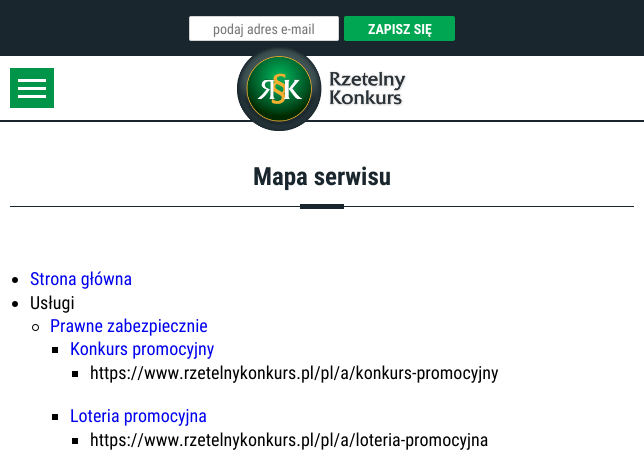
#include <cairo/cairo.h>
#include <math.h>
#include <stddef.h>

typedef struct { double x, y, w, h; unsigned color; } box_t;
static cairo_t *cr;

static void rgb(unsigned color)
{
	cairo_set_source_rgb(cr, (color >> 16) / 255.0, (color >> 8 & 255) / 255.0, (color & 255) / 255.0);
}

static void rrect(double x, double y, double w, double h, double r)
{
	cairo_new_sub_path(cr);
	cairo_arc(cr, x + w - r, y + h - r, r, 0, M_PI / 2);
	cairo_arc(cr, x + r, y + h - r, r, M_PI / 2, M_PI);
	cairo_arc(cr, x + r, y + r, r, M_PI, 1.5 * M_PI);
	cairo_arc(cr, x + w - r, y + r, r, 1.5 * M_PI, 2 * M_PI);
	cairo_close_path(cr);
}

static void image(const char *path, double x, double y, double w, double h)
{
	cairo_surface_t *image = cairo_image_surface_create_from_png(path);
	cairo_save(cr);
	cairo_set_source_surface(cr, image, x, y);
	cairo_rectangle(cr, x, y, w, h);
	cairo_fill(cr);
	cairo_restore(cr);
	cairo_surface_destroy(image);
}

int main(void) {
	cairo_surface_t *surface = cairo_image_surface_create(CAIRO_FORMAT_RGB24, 644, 471);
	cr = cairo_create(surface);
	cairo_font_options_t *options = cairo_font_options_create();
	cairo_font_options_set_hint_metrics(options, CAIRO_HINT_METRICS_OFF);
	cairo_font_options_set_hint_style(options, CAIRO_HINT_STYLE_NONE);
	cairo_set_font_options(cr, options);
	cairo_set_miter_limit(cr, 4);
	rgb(0xffffff);
	cairo_paint(cr);
	rgb(0x1a262d);
	cairo_rectangle(cr, 0, 120, 644, 2);
	cairo_fill(cr);
	cairo_rectangle(cr, 0, 0, 644, 56);
	cairo_fill(cr);
	rgb(0xffffff);
	rrect(189.5, 16.5, 149, 24, 1.5);
	cairo_fill_preserve(cr);
	rgb(0xd4d4d4);
	cairo_set_line_width(cr, 1);
	cairo_stroke(cr);
	rgb(0x00a651);
	rrect(344, 16, 111, 25, 2);
	cairo_fill(cr);
	{
		static const box_t items[] = {
			{10, 68, 44, 40, 0x009549},
			{18, 79, 28, 3, 0xffffff},
			{18, 87, 28, 3, 0xffffff},
			{18, 95, 28, 3, 0xffffff},
		};
		for (size_t i = 0; i < sizeof items / sizeof *items; i++) {
			rgb(items[i].color);
			cairo_rectangle(cr, items[i].x, items[i].y, items[i].w, items[i].h);
			cairo_fill(cr);
		}
	}
	image("img/1.png", 237, 46, 170, 85);
	rgb(0x1a262d);
	cairo_rectangle(cr, 10, 206, 624, 1);
	cairo_fill(cr);
	cairo_rectangle(cr, 300, 204, 44, 5);
	cairo_fill(cr);
	rgb(0x000000);
	cairo_arc(cr, 15, 280, 3, 0, 2 * M_PI);
	cairo_fill(cr);
	cairo_arc(cr, 15, 304, 3, 0, 2 * M_PI);
	cairo_fill(cr);
	cairo_arc(cr, 35.5, 327.5, 3, 0, 2 * M_PI);
	cairo_stroke(cr);
	{
		static const box_t items[] = {
			{52, 347, 6, 6, 0x000000},
			{72, 371, 6, 6, 0x000000},
			{52, 414, 6, 6, 0x000000},
			{72, 438, 6, 6, 0x000000},
		};
		for (size_t i = 0; i < sizeof items / sizeof *items; i++) {
			rgb(items[i].color);
			cairo_rectangle(cr, items[i].x, items[i].y, items[i].w, items[i].h);
			cairo_fill(cr);
		}
	}
	cairo_select_font_face(cr, "Roboto Condensed", CAIRO_FONT_SLANT_NORMAL, CAIRO_FONT_WEIGHT_NORMAL);
	cairo_set_font_size(cr, 14);
	rgb(0x757575);
	cairo_move_to(cr, 213, 34);
	cairo_show_text(cr, "podaj adres e-mail");
	cairo_select_font_face(cr, "Roboto Condensed", CAIRO_FONT_SLANT_NORMAL, CAIRO_FONT_WEIGHT_BOLD);
	rgb(0xffffff);
	cairo_move_to(cr, 368, 34);
	cairo_show_text(cr, "ZAPISZ SIĘ");
	cairo_set_font_size(cr, 25);
	rgb(0x1a262d);
	cairo_move_to(cr, 253, 185);
	cairo_show_text(cr, "Mapa serwisu");
	cairo_select_font_face(cr, "Roboto Condensed", CAIRO_FONT_SLANT_NORMAL, CAIRO_FONT_WEIGHT_NORMAL);
	cairo_set_font_size(cr, 18);
	rgb(0x0000ee);
	cairo_move_to(cr, 30, 285);
	cairo_show_text(cr, "Strona główna");
	rgb(0x000000);
	cairo_move_to(cr, 30, 309);
	cairo_show_text(cr, "Usługi");
	rgb(0x0000ee);
	cairo_move_to(cr, 50, 332);
	cairo_show_text(cr, "Prawne zabezpiecznie");
	cairo_move_to(cr, 70, 355);
	cairo_show_text(cr, "Konkurs promocyjny");
	rgb(0x000000);
	cairo_move_to(cr, 90, 379);
	cairo_show_text(cr, "https://www.rzetelnykonkurs.pl/pl/a/konkurs-promocyjny");
	rgb(0x0000ee);
	cairo_move_to(cr, 70, 422);
	cairo_show_text(cr, "Loteria promocyjna");
	rgb(0x000000);
	cairo_move_to(cr, 90, 446);
	cairo_show_text(cr, "https://www.rzetelnykonkurs.pl/pl/a/loteria-promocyjna");
	cairo_surface_write_to_png(surface, "page.png");
	cairo_font_options_destroy(options);
	cairo_destroy(cr);
	cairo_surface_destroy(surface);
	return 0;
}
